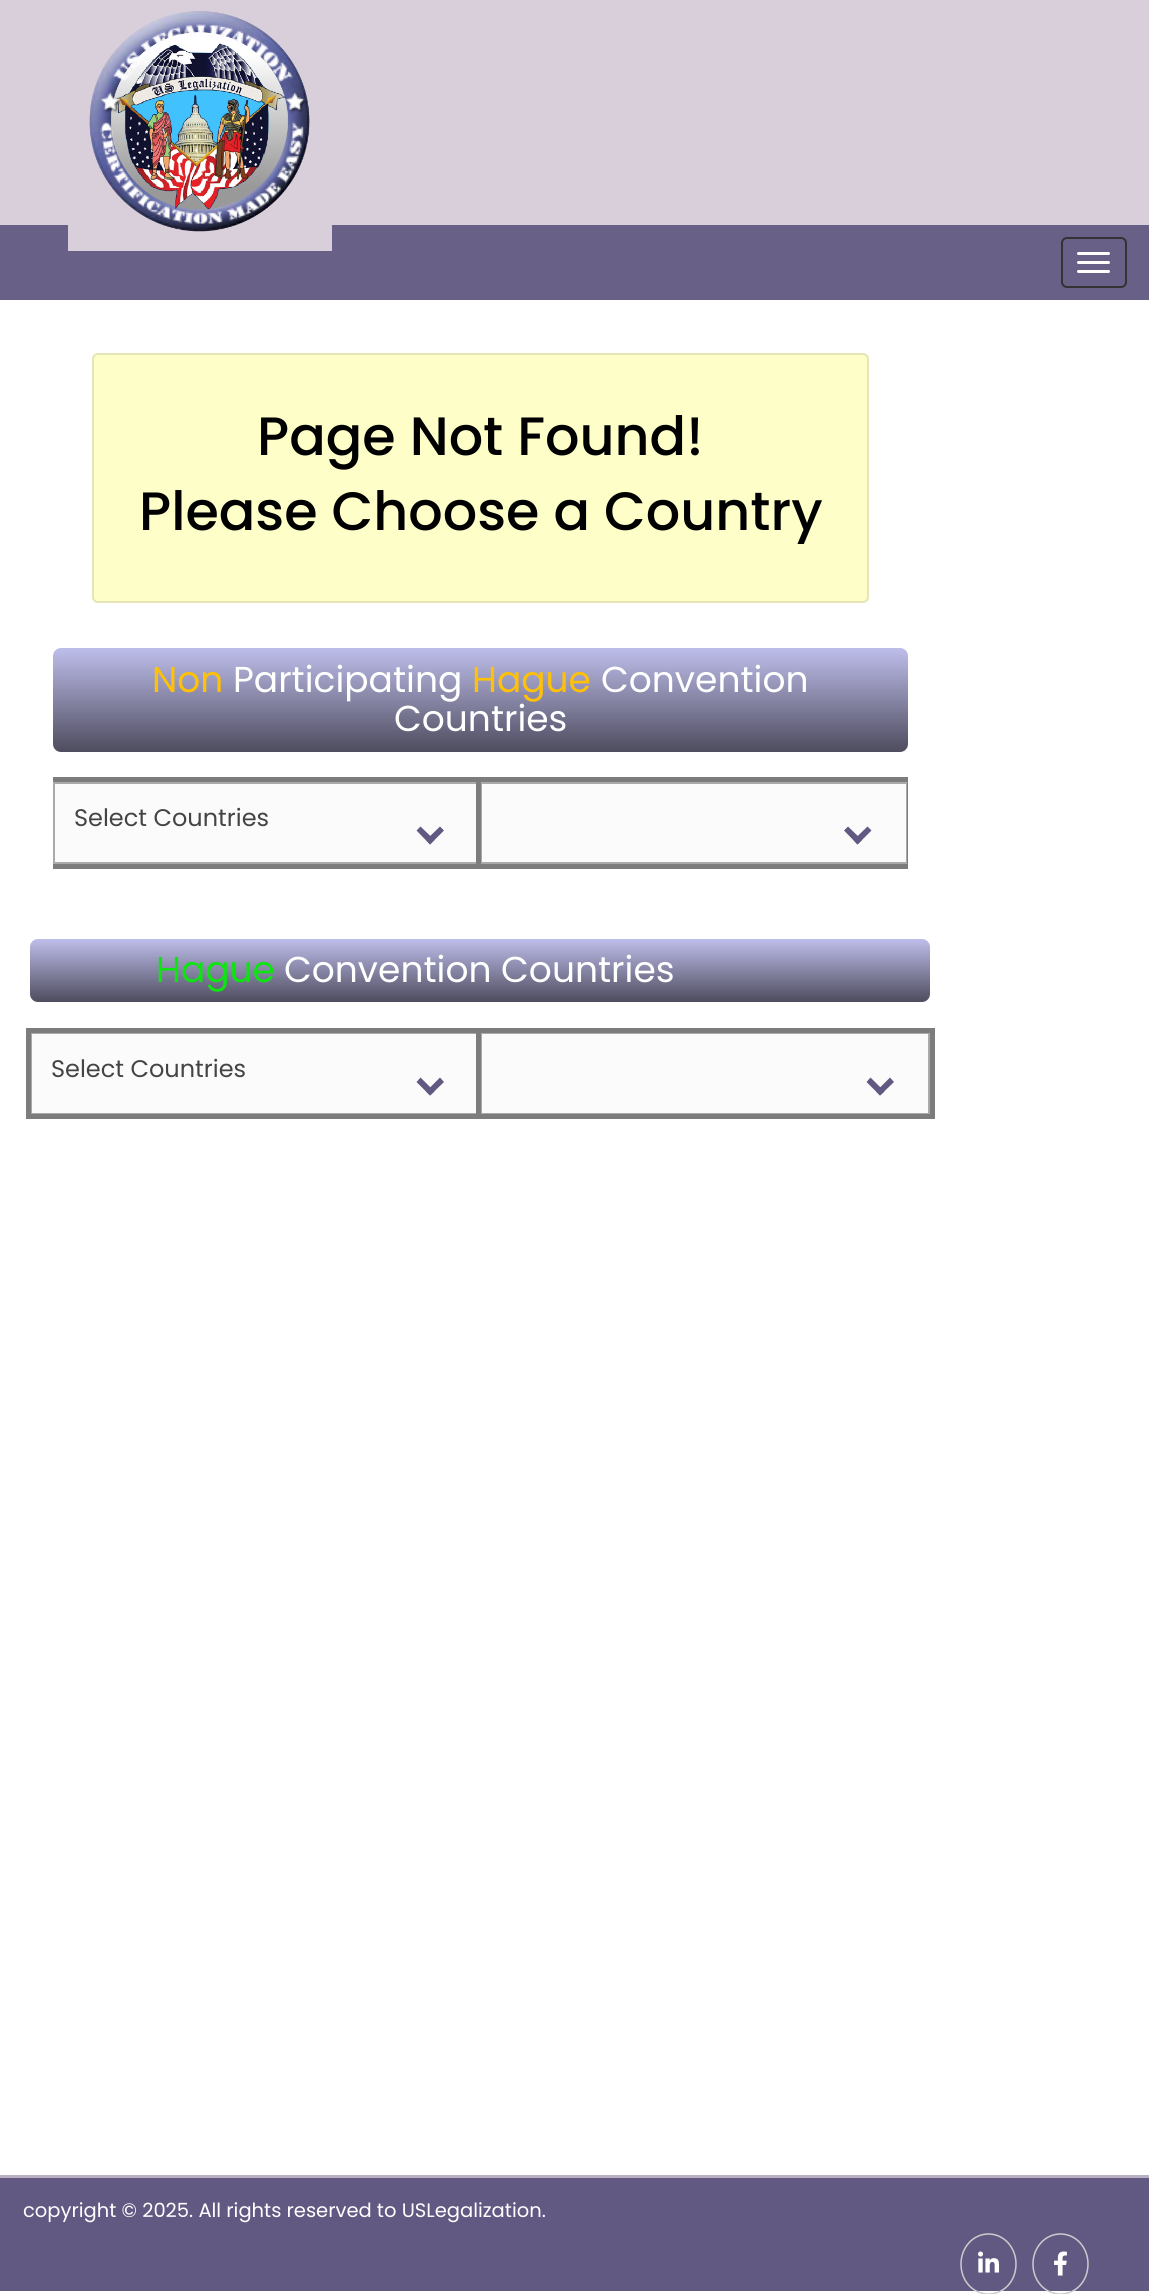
#include <cairo/cairo.h>
#include <math.h>
#include <stddef.h>

typedef struct { double x, y, w, h; unsigned color; } box_t;
static cairo_t *cr;

static void rgb(unsigned color)
{
	cairo_set_source_rgb(cr, (color >> 16) / 255.0, (color >> 8 & 255) / 255.0, (color & 255) / 255.0);
}

static void rrect(double x, double y, double w, double h, double r)
{
	cairo_new_sub_path(cr);
	cairo_arc(cr, x + w - r, y + h - r, r, 0, M_PI / 2);
	cairo_arc(cr, x + r, y + h - r, r, M_PI / 2, M_PI);
	cairo_arc(cr, x + r, y + r, r, M_PI, 1.5 * M_PI);
	cairo_arc(cr, x + w - r, y + r, r, 1.5 * M_PI, 2 * M_PI);
	cairo_close_path(cr);
}

static void image(const char *path, double x, double y, double w, double h)
{
	cairo_surface_t *image = cairo_image_surface_create_from_png(path);
	cairo_save(cr);
	cairo_set_source_surface(cr, image, x, y);
	cairo_rectangle(cr, x, y, w, h);
	cairo_fill(cr);
	cairo_restore(cr);
	cairo_surface_destroy(image);
}

int main(void) {
	cairo_surface_t *surface = cairo_image_surface_create(CAIRO_FORMAT_RGB24, 1149, 2294);
	cr = cairo_create(surface);
	cairo_font_options_t *options = cairo_font_options_create();
	cairo_font_options_set_hint_metrics(options, CAIRO_HINT_METRICS_OFF);
	cairo_font_options_set_hint_style(options, CAIRO_HINT_STYLE_NONE);
	cairo_set_font_options(cr, options);
	cairo_set_miter_limit(cr, 4);
	cairo_pattern_t *gradient;
	rgb(0xffffff);
	cairo_paint(cr);
	{
		static const box_t items[] = {
			{0, 0, 68, 225, 0xd9cfda},
			{0, 225, 1149, 75, 0x696088},
			{68, 0, 264, 251, 0xd9cfda},
		};
		for (size_t i = 0; i < sizeof items / sizeof *items; i++) {
			rgb(items[i].color);
			cairo_rectangle(cr, items[i].x, items[i].y, items[i].w, items[i].h);
			cairo_fill(cr);
		}
	}
	image("img/1.png", 89, 11, 221, 221);
	image("img/2.png", 100, 24, 206, 200);
	cairo_rectangle(cr, 332, 0, 817, 225);
	cairo_fill(cr);
	rrect(1062, 238, 64, 49, 5);
	rgb(0x333333);
	cairo_stroke(cr);
	rgb(0xffffff);
	rrect(1077, 252, 33, 3, 1.5);
	cairo_fill(cr);
	rrect(1077, 261, 33, 3, 1.5);
	cairo_fill(cr);
	rrect(1077, 270, 33, 3, 1.5);
	cairo_fill(cr);
	rgb(0xfefec9);
	rrect(92, 353, 777, 250, 6);
	cairo_fill(cr);
	rrect(93, 354, 775, 248, 5);
	cairo_set_source_rgba(cr, 0, 0, 0, 0.1);
	cairo_stroke(cr);
	gradient = cairo_pattern_create_linear(480, 648, 480, 752);
	cairo_pattern_add_color_stop_rgba(gradient, 0, 0.745, 0.745, 0.922, 1);
	cairo_pattern_add_color_stop_rgba(gradient, 1, 0.306, 0.298, 0.369, 1);
	cairo_set_source(cr, gradient);
	cairo_pattern_destroy(gradient);
	rrect(53, 648, 855, 104, 8);
	cairo_fill(cr);
	rgb(0xfbfbfb);
	cairo_rectangle(cr, 55, 784, 421, 78);
	cairo_fill(cr);
	cairo_rectangle(cr, 54, 783, 425, 80);
	rgb(0xaaaaaa);
	cairo_stroke(cr);
	cairo_save(cr);
	cairo_rectangle(cr, 53, 752, 855, 142);
	cairo_clip(cr);
	cairo_rectangle(cr, 50.5, 779.5, 432, 87);
	rgb(0x7c7c7c);
	cairo_set_line_width(cr, 5);
	cairo_stroke(cr);
	cairo_restore(cr);
	rgb(0x625983);
	cairo_new_path(cr);
	cairo_move_to(cr, 440, 826.5);
	cairo_line_to(cr, 444, 830.5);
	cairo_line_to(cr, 430, 844.5);
	cairo_line_to(cr, 426, 840);
	cairo_close_path(cr);
	cairo_fill(cr);
	cairo_new_path(cr);
	cairo_move_to(cr, 420.5, 826.5);
	cairo_line_to(cr, 434.5, 840);
	cairo_line_to(cr, 430, 844.5);
	cairo_line_to(cr, 416.5, 830.5);
	cairo_close_path(cr);
	cairo_fill(cr);
	rgb(0xfbfbfb);
	cairo_rectangle(cr, 481, 783, 426, 80);
	cairo_fill_preserve(cr);
	rgb(0xaaaaaa);
	cairo_stroke(cr);
	cairo_save(cr);
	cairo_rectangle(cr, 53, 752, 855, 142);
	cairo_clip(cr);
	cairo_rectangle(cr, 478.5, 779.5, 431, 87);
	rgb(0x7c7c7c);
	cairo_set_line_width(cr, 5);
	cairo_stroke(cr);
	cairo_restore(cr);
	rgb(0x625983);
	cairo_new_path(cr);
	cairo_move_to(cr, 867.5, 826.5);
	cairo_line_to(cr, 871.5, 830.5);
	cairo_line_to(cr, 857.5, 844.5);
	cairo_line_to(cr, 853.5, 840);
	cairo_close_path(cr);
	cairo_fill(cr);
	cairo_new_path(cr);
	cairo_move_to(cr, 848, 826.5);
	cairo_line_to(cr, 862, 840);
	cairo_line_to(cr, 857.5, 844.5);
	cairo_line_to(cr, 844, 830.5);
	cairo_close_path(cr);
	cairo_fill(cr);
	gradient = cairo_pattern_create_linear(480, 939, 480, 1002);
	cairo_pattern_add_color_stop_rgba(gradient, 0, 0.745, 0.745, 0.922, 1);
	cairo_pattern_add_color_stop_rgba(gradient, 1, 0.306, 0.298, 0.369, 1);
	cairo_set_source(cr, gradient);
	cairo_pattern_destroy(gradient);
	rrect(30, 939, 900, 63, 8);
	cairo_fill(cr);
	rgb(0xfbfbfb);
	cairo_rectangle(cr, 32, 1034, 444, 79);
	cairo_fill(cr);
	cairo_rectangle(cr, 31, 1033, 448, 81);
	rgb(0xaaaaaa);
	cairo_stroke(cr);
	cairo_rectangle(cr, 28.5, 1030.5, 454, 86);
	rgb(0x7c7c7c);
	cairo_set_line_width(cr, 5);
	cairo_stroke(cr);
	rgb(0x625983);
	cairo_new_path(cr);
	cairo_move_to(cr, 440, 1077.5);
	cairo_line_to(cr, 444, 1082);
	cairo_line_to(cr, 430, 1095.5);
	cairo_line_to(cr, 426, 1091.5);
	cairo_close_path(cr);
	cairo_fill(cr);
	cairo_new_path(cr);
	cairo_move_to(cr, 420.5, 1077.5);
	cairo_line_to(cr, 434.5, 1091.5);
	cairo_line_to(cr, 430, 1095.5);
	cairo_line_to(cr, 416.5, 1082);
	cairo_close_path(cr);
	cairo_fill(cr);
	rgb(0xfbfbfb);
	cairo_rectangle(cr, 481, 1033, 448, 81);
	cairo_fill_preserve(cr);
	rgb(0xaaaaaa);
	cairo_set_line_width(cr, 2);
	cairo_stroke(cr);
	cairo_rectangle(cr, 478.5, 1030.5, 454, 86);
	rgb(0x7c7c7c);
	cairo_set_line_width(cr, 5);
	cairo_stroke(cr);
	rgb(0x625983);
	cairo_new_path(cr);
	cairo_move_to(cr, 890, 1077.5);
	cairo_line_to(cr, 894, 1082);
	cairo_line_to(cr, 880, 1095.5);
	cairo_line_to(cr, 876, 1091.5);
	cairo_close_path(cr);
	cairo_fill(cr);
	cairo_new_path(cr);
	cairo_move_to(cr, 870.5, 1077.5);
	cairo_line_to(cr, 884.5, 1091.5);
	cairo_line_to(cr, 880, 1095.5);
	cairo_line_to(cr, 866.5, 1082);
	cairo_close_path(cr);
	cairo_fill(cr);
	cairo_rectangle(cr, 0, 2178, 1149, 113);
	cairo_fill(cr);
	rgb(0xb9b0c4);
	cairo_rectangle(cr, 0, 2175, 1149, 3);
	cairo_fill(cr);
	cairo_new_path(cr);
	cairo_move_to(cr, 988.5, 2234);
	cairo_curve_to(cr, 1004, 2234, 1016, 2247.5, 1016, 2264);
	cairo_curve_to(cr, 1016, 2281, 1004, 2294, 988.5, 2294);
	cairo_curve_to(cr, 973, 2294, 961, 2281, 961, 2264);
	cairo_curve_to(cr, 961, 2247.5, 973, 2234, 988.5, 2234);
	cairo_close_path(cr);
	rgb(0xcccccc);
	cairo_set_line_width(cr, 1.5);
	cairo_stroke(cr);
	image("img/3.png", 978, 2251, 21, 22);
	cairo_new_path(cr);
	cairo_move_to(cr, 1060.5, 2234);
	cairo_curve_to(cr, 1076, 2234, 1088, 2247.5, 1088, 2264);
	cairo_curve_to(cr, 1088, 2281, 1076, 2294, 1060.5, 2294);
	cairo_curve_to(cr, 1045, 2294, 1033, 2281, 1033, 2264);
	cairo_curve_to(cr, 1033, 2247.5, 1045, 2234, 1060.5, 2234);
	cairo_close_path(cr);
	cairo_stroke(cr);
	image("img/4.png", 1054, 2251, 13, 25);
	cairo_select_font_face(cr, "Poppins Medium", CAIRO_FONT_SLANT_NORMAL, CAIRO_FONT_WEIGHT_NORMAL);
	cairo_set_font_size(cr, 54);
	rgb(0x000000);
	cairo_move_to(cr, 257, 455);
	cairo_show_text(cr, "Page Not Found!");
	cairo_move_to(cr, 139, 530);
	cairo_show_text(cr, "Please Choose a Country");
	cairo_select_font_face(cr, "Poppins", CAIRO_FONT_SLANT_NORMAL, CAIRO_FONT_WEIGHT_NORMAL);
	cairo_set_font_size(cr, 36);
	rgb(0xffc107);
	cairo_move_to(cr, 152, 692);
	cairo_show_text(cr, "Non");
	rgb(0xffffff);
	cairo_move_to(cr, 233, 692);
	cairo_show_text(cr, "Participating");
	rgb(0xffc107);
	cairo_move_to(cr, 472, 692);
	cairo_show_text(cr, "Hague");
	rgb(0xffffff);
	cairo_move_to(cr, 601, 692);
	cairo_show_text(cr, "Convention");
	cairo_move_to(cr, 394, 731);
	cairo_show_text(cr, "Countries");
	cairo_set_font_size(cr, 24);
	rgb(0x444444);
	cairo_move_to(cr, 74, 826);
	cairo_show_text(cr, "Select Countries");
	cairo_set_font_size(cr, 36);
	rgb(0x0de510);
	cairo_move_to(cr, 156, 982);
	cairo_show_text(cr, "Hague");
	rgb(0xffffff);
	cairo_move_to(cr, 284, 982);
	cairo_show_text(cr, "Convention Countries");
	cairo_set_font_size(cr, 24);
	rgb(0x444444);
	cairo_move_to(cr, 51, 1077);
	cairo_show_text(cr, "Select Countries");
	cairo_set_font_size(cr, 19.5);
	rgb(0xffffff);
	cairo_move_to(cr, 23, 2217);
	cairo_show_text(cr, "copyright © 2025. All rights reserved to USLegalization.");
	cairo_surface_write_to_png(surface, "page.png");
	cairo_font_options_destroy(options);
	cairo_destroy(cr);
	cairo_surface_destroy(surface);
	return 0;
}
